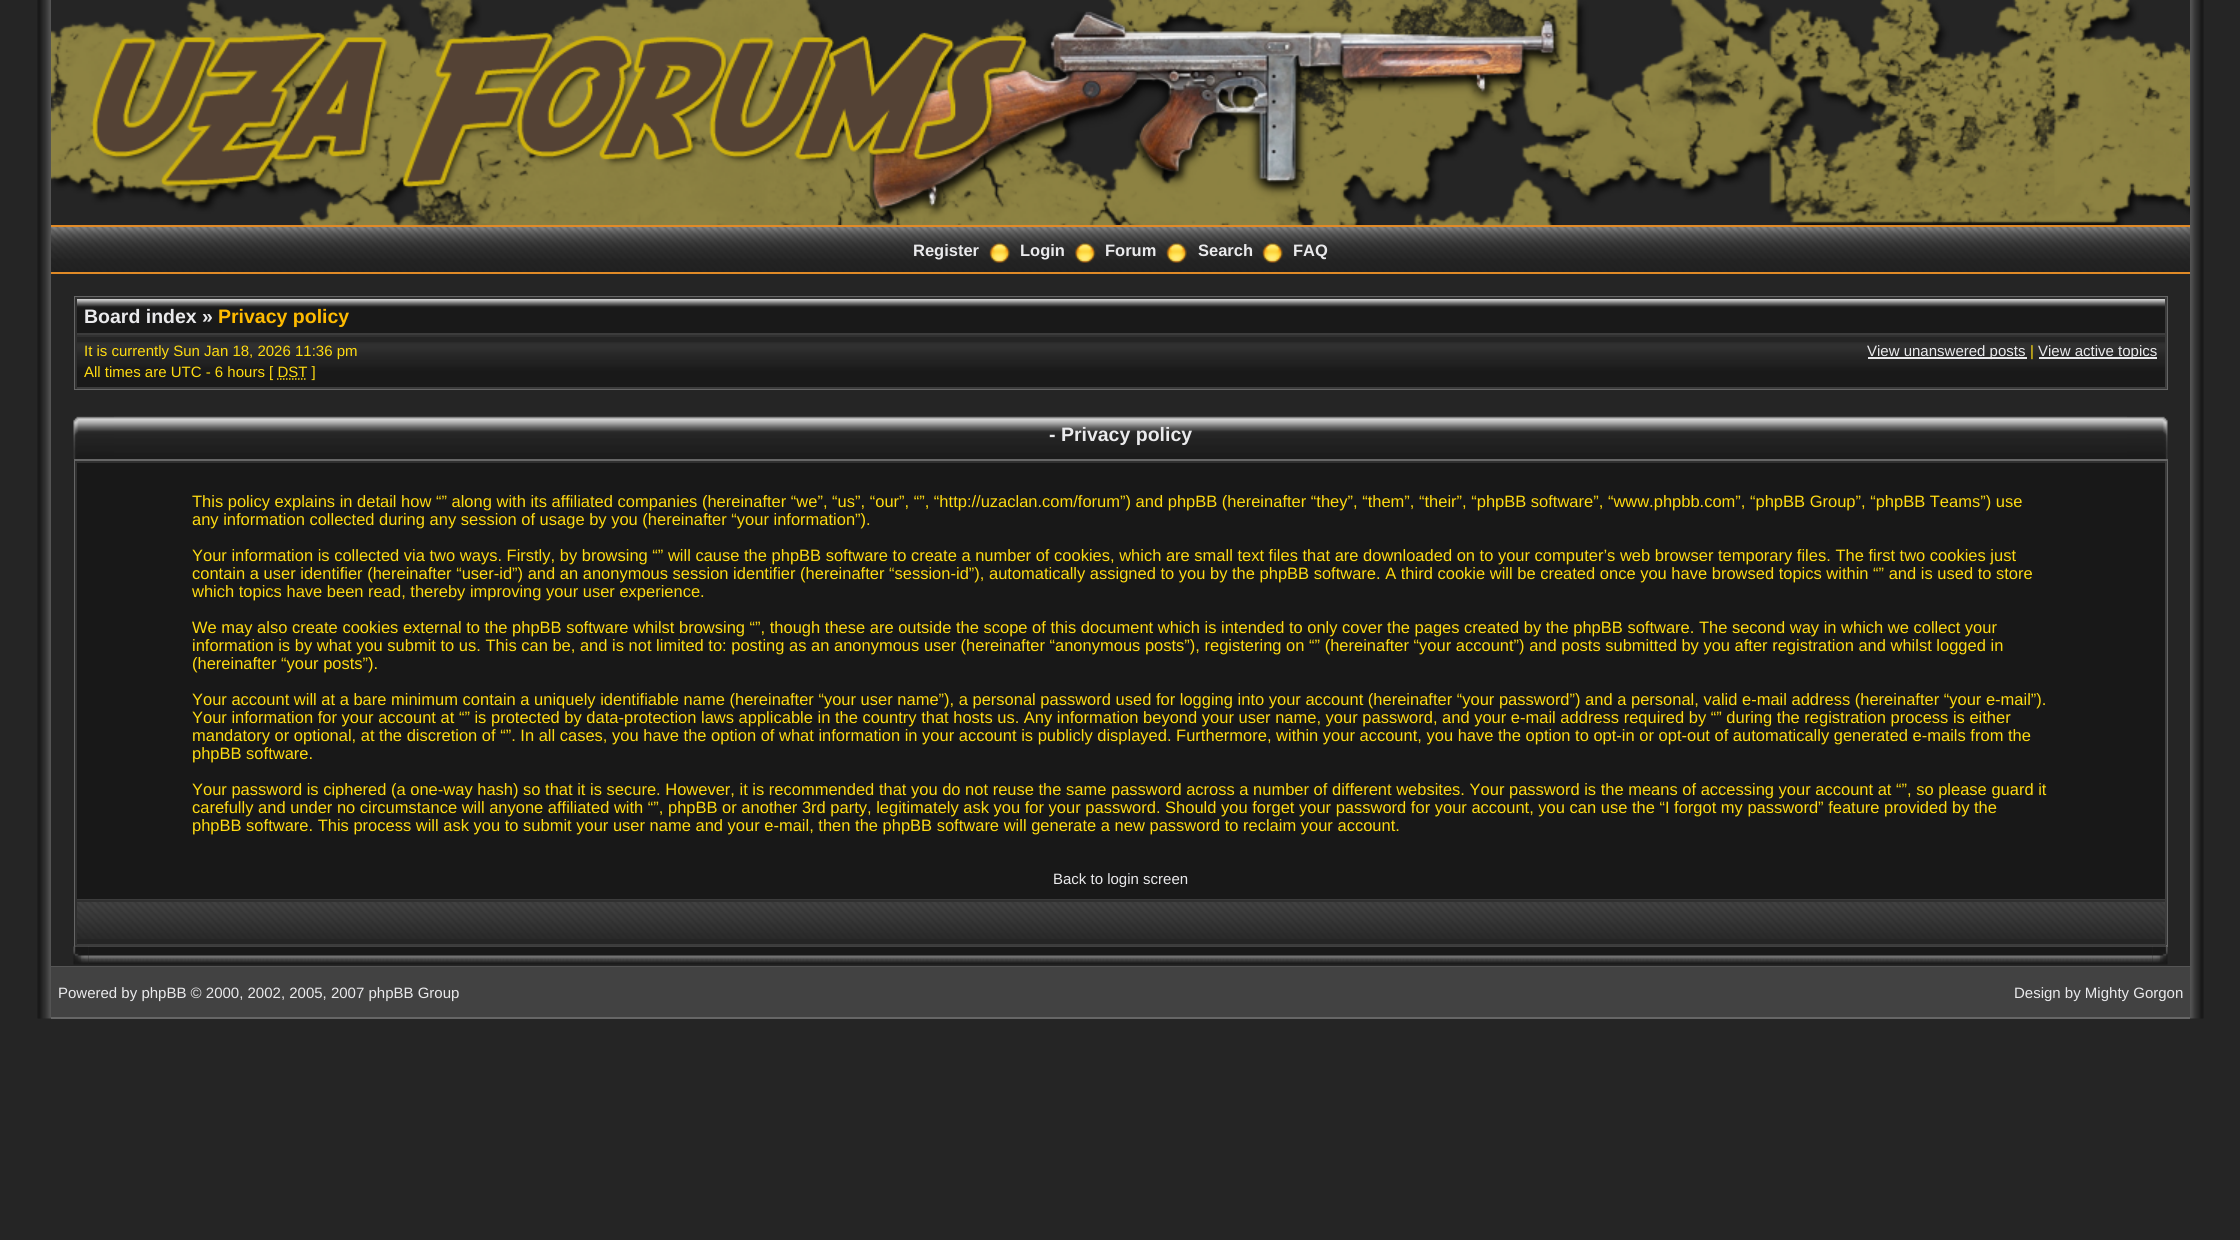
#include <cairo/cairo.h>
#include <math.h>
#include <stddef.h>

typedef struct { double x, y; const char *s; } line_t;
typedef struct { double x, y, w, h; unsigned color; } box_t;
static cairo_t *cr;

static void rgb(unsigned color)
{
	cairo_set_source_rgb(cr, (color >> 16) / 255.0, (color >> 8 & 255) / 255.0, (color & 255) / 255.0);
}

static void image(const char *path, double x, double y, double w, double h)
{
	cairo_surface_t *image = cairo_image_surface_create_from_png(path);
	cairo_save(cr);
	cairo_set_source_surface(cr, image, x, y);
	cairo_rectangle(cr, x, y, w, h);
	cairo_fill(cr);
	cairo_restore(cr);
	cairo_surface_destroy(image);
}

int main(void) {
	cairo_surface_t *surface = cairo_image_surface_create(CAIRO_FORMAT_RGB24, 2240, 1240);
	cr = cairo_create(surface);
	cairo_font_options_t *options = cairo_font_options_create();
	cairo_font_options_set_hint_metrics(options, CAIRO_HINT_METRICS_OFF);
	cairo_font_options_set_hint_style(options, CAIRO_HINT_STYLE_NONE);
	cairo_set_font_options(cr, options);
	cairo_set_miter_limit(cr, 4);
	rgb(0x252525);
	cairo_paint(cr);
	image("img/1.png", 37, 0, 14, 1019);
	image("img/2.png", 51, 0, 2139, 225);
	image("img/3.png", 51, 227, 2139, 45);
	rgb(0xe08a27);
	cairo_rectangle(cr, 51, 225, 2139, 2);
	cairo_fill(cr);
	cairo_rectangle(cr, 51, 272, 2139, 2);
	cairo_fill(cr);
	image("img/4.png", 989, 242, 21, 21);
	image("img/5.png", 1074, 242, 22, 21);
	image("img/6.png", 1166, 242, 21, 21);
	image("img/7.png", 1262, 242, 21, 21);
	cairo_rectangle(cr, 75, 297, 2092, 92);
	rgb(0x666666);
	cairo_stroke(cr);
	image("img/8.png", 77, 299, 2088, 34);
	{
		static const box_t items[] = {
			{75, 297, 2091, 2, 0x303030},
			{2165, 297, 2, 38, 0x3c3c3c},
			{75, 333, 2091, 2, 0x3c3c3c},
			{75, 297, 2, 38, 0x303030},
		};
		for (size_t i = 0; i < sizeof items / sizeof *items; i++) {
			rgb(items[i].color);
			cairo_rectangle(cr, items[i].x, items[i].y, items[i].w, items[i].h);
			cairo_fill(cr);
		}
	}
	image("img/9.png", 77, 342, 2088, 45);
	{
		static const box_t items[] = {
			{75, 335, 2091, 2, 0x303030},
			{2165, 335, 2, 54, 0x3c3c3c},
			{75, 387, 2091, 2, 0x3c3c3c},
			{75, 335, 2, 54, 0x303030},
		};
		for (size_t i = 0; i < sizeof items / sizeof *items; i++) {
			rgb(items[i].color);
			cairo_rectangle(cr, items[i].x, items[i].y, items[i].w, items[i].h);
			cairo_fill(cr);
		}
	}
	cairo_new_path(cr);
	cairo_move_to(cr, 277, 379);
	cairo_line_to(cr, 307, 379);
	rgb(0xffdb11);
	cairo_set_line_width(cr, 1.5);
	cairo_set_dash(cr, (double[]){1.5, 1.5}, 2, 0);
	cairo_stroke(cr);
	rgb(0xeaeaec);
	cairo_rectangle(cr, 1868, 357, 159, 2);
	cairo_fill(cr);
	cairo_rectangle(cr, 2039, 357, 118, 2);
	cairo_fill(cr);
	image("img/10.png", 73, 416, 41, 43);
	image("img/11.png", 2127, 416, 41, 43);
	image("img/12.png", 114, 416, 2013, 43);
	cairo_rectangle(cr, 75, 460, 2092, 486);
	rgb(0x666666);
	cairo_set_line_width(cr, 2);
	cairo_set_dash(cr, NULL, 0, 0);
	cairo_stroke(cr);
	{
		static const box_t items[] = {
			{77, 463, 2088, 436, 0x181818},
			{75, 461, 2091, 2, 0x303030},
			{2165, 461, 2, 439, 0x3c3c3c},
			{75, 899, 2091, 1, 0x3c3c3c},
			{75, 461, 2, 439, 0x303030},
		};
		for (size_t i = 0; i < sizeof items / sizeof *items; i++) {
			rgb(items[i].color);
			cairo_rectangle(cr, items[i].x, items[i].y, items[i].w, items[i].h);
			cairo_fill(cr);
		}
	}
	image("img/13.png", 77, 902, 2088, 37);
	{
		static const box_t items[] = {
			{75, 900, 2091, 2, 0x303030},
			{2165, 900, 2, 45, 0x3c3c3c},
			{75, 944, 2091, 2, 0x3c3c3c},
			{75, 900, 2, 45, 0x303030},
		};
		for (size_t i = 0; i < sizeof items / sizeof *items; i++) {
			rgb(items[i].color);
			cairo_rectangle(cr, items[i].x, items[i].y, items[i].w, items[i].h);
			cairo_fill(cr);
		}
	}
	image("img/14.png", 73, 946, 16, 19);
	image("img/15.png", 2152, 946, 16, 19);
	image("img/16.png", 88, 946, 2065, 19);
	{
		static const box_t items[] = {
			{51, 966, 2139, 1, 0x555555},
			{51, 1017, 2139, 2, 0x666666},
			{51, 967, 2139, 50, 0x424242},
		};
		for (size_t i = 0; i < sizeof items / sizeof *items; i++) {
			rgb(items[i].color);
			cairo_rectangle(cr, items[i].x, items[i].y, items[i].w, items[i].h);
			cairo_fill(cr);
		}
	}
	image("img/17.png", 2190, 0, 14, 1019);
	cairo_select_font_face(cr, "Liberation Sans", CAIRO_FONT_SLANT_NORMAL, CAIRO_FONT_WEIGHT_BOLD);
	cairo_set_font_size(cr, 16.5);
	rgb(0xeaeaec);
	{
		static const line_t items[] = {
			{913, 256, "Register"},
			{1020, 256, "Login"},
			{1105, 256, "Forum"},
			{1198, 256, "Search"},
			{1293, 256, "FAQ"},
		};
		for (size_t i = 0; i < sizeof items / sizeof *items; i++) {
			cairo_move_to(cr, items[i].x, items[i].y);
			cairo_show_text(cr, items[i].s);
		}
	}
	cairo_set_font_size(cr, 19.5);
	cairo_move_to(cr, 84, 323);
	cairo_show_text(cr, "Board index »");
	rgb(0xffbb00);
	cairo_move_to(cr, 218, 323);
	cairo_show_text(cr, "Privacy policy");
	cairo_select_font_face(cr, "Liberation Sans", CAIRO_FONT_SLANT_NORMAL, CAIRO_FONT_WEIGHT_NORMAL);
	cairo_set_font_size(cr, 15);
	rgb(0xffdb11);
	cairo_move_to(cr, 84, 356);
	cairo_show_text(cr, "It is currently Sun Jan 18, 2026 11:36 pm");
	cairo_move_to(cr, 84, 377);
	cairo_show_text(cr, "All times are UTC - 6 hours [ DST ]");
	rgb(0xeaeaec);
	cairo_move_to(cr, 1867, 356);
	cairo_show_text(cr, "View unanswered posts");
	rgb(0xffdb11);
	cairo_move_to(cr, 2030, 356);
	cairo_show_text(cr, "|");
	rgb(0xeaeaec);
	cairo_move_to(cr, 2038, 356);
	cairo_show_text(cr, "View active topics");
	cairo_select_font_face(cr, "Liberation Sans", CAIRO_FONT_SLANT_NORMAL, CAIRO_FONT_WEIGHT_BOLD);
	cairo_set_font_size(cr, 19.5);
	cairo_move_to(cr, 1049, 441);
	cairo_show_text(cr, "- Privacy policy");
	cairo_select_font_face(cr, "Liberation Sans", CAIRO_FONT_SLANT_NORMAL, CAIRO_FONT_WEIGHT_NORMAL);
	cairo_set_font_size(cr, 16.5);
	rgb(0xffdb11);
	{
		static const line_t items[] = {
			{192, 507, "This policy explains in detail how “” along with its affiliated companies (hereinafter “we”, “us”, “our”, “”, “http://uzaclan.com/forum”) and phpBB (hereinafter “they”, “them”, “their”, “phpBB software”, “www.phpbb.com”, “phpBB Group”, “phpBB Teams”) use"},
			{192, 525, "any information collected during any session of usage by you (hereinafter “your information”)."},
			{192, 561, "Your information is collected via two ways. Firstly, by browsing “” will cause the phpBB software to create a number of cookies, which are small text files that are downloaded on to your computer’s web browser temporary files. The first two cookies just"},
			{192, 579, "contain a user identifier (hereinafter “user-id”) and an anonymous session identifier (hereinafter “session-id”), automatically assigned to you by the phpBB software. A third cookie will be created once you have browsed topics within “” and is used to store"},
			{192, 597, "which topics have been read, thereby improving your user experience."},
			{192, 633, "We may also create cookies external to the phpBB software whilst browsing “”, though these are outside the scope of this document which is intended to only cover the pages created by the phpBB software. The second way in which we collect your"},
			{192, 651, "information is by what you submit to us. This can be, and is not limited to: posting as an anonymous user (hereinafter “anonymous posts”), registering on “” (hereinafter “your account”) and posts submitted by you after registration and whilst logged in"},
			{192, 669, "(hereinafter “your posts”)."},
			{192, 705, "Your account will at a bare minimum contain a uniquely identifiable name (hereinafter “your user name”), a personal password used for logging into your account (hereinafter “your password”) and a personal, valid e-mail address (hereinafter “your e-mail”)."},
			{192, 723, "Your information for your account at “” is protected by data-protection laws applicable in the country that hosts us. Any information beyond your user name, your password, and your e-mail address required by “” during the registration process is either"},
			{192, 741, "mandatory or optional, at the discretion of “”. In all cases, you have the option of what information in your account is publicly displayed. Furthermore, within your account, you have the option to opt-in or opt-out of automatically generated e-mails from the"},
			{192, 759, "phpBB software."},
			{192, 795, "Your password is ciphered (a one-way hash) so that it is secure. However, it is recommended that you do not reuse the same password across a number of different websites. Your password is the means of accessing your account at “”, so please guard it"},
			{192, 813, "carefully and under no circumstance will anyone affiliated with “”, phpBB or another 3rd party, legitimately ask you for your password. Should you forget your password for your account, you can use the “I forgot my password” feature provided by the"},
			{192, 831, "phpBB software. This process will ask you to submit your user name and your e-mail, then the phpBB software will generate a new password to reclaim your account."},
		};
		for (size_t i = 0; i < sizeof items / sizeof *items; i++) {
			cairo_move_to(cr, items[i].x, items[i].y);
			cairo_show_text(cr, items[i].s);
		}
	}
	cairo_set_font_size(cr, 15);
	rgb(0xeaeaec);
	{
		static const line_t items[] = {
			{1053, 884, "Back to login screen"},
			{58, 998, "Powered by phpBB © 2000, 2002, 2005, 2007 phpBB Group"},
			{2014, 998, "Design by Mighty Gorgon"},
		};
		for (size_t i = 0; i < sizeof items / sizeof *items; i++) {
			cairo_move_to(cr, items[i].x, items[i].y);
			cairo_show_text(cr, items[i].s);
		}
	}
	cairo_surface_write_to_png(surface, "page.png");
	cairo_font_options_destroy(options);
	cairo_destroy(cr);
	cairo_surface_destroy(surface);
	return 0;
}
